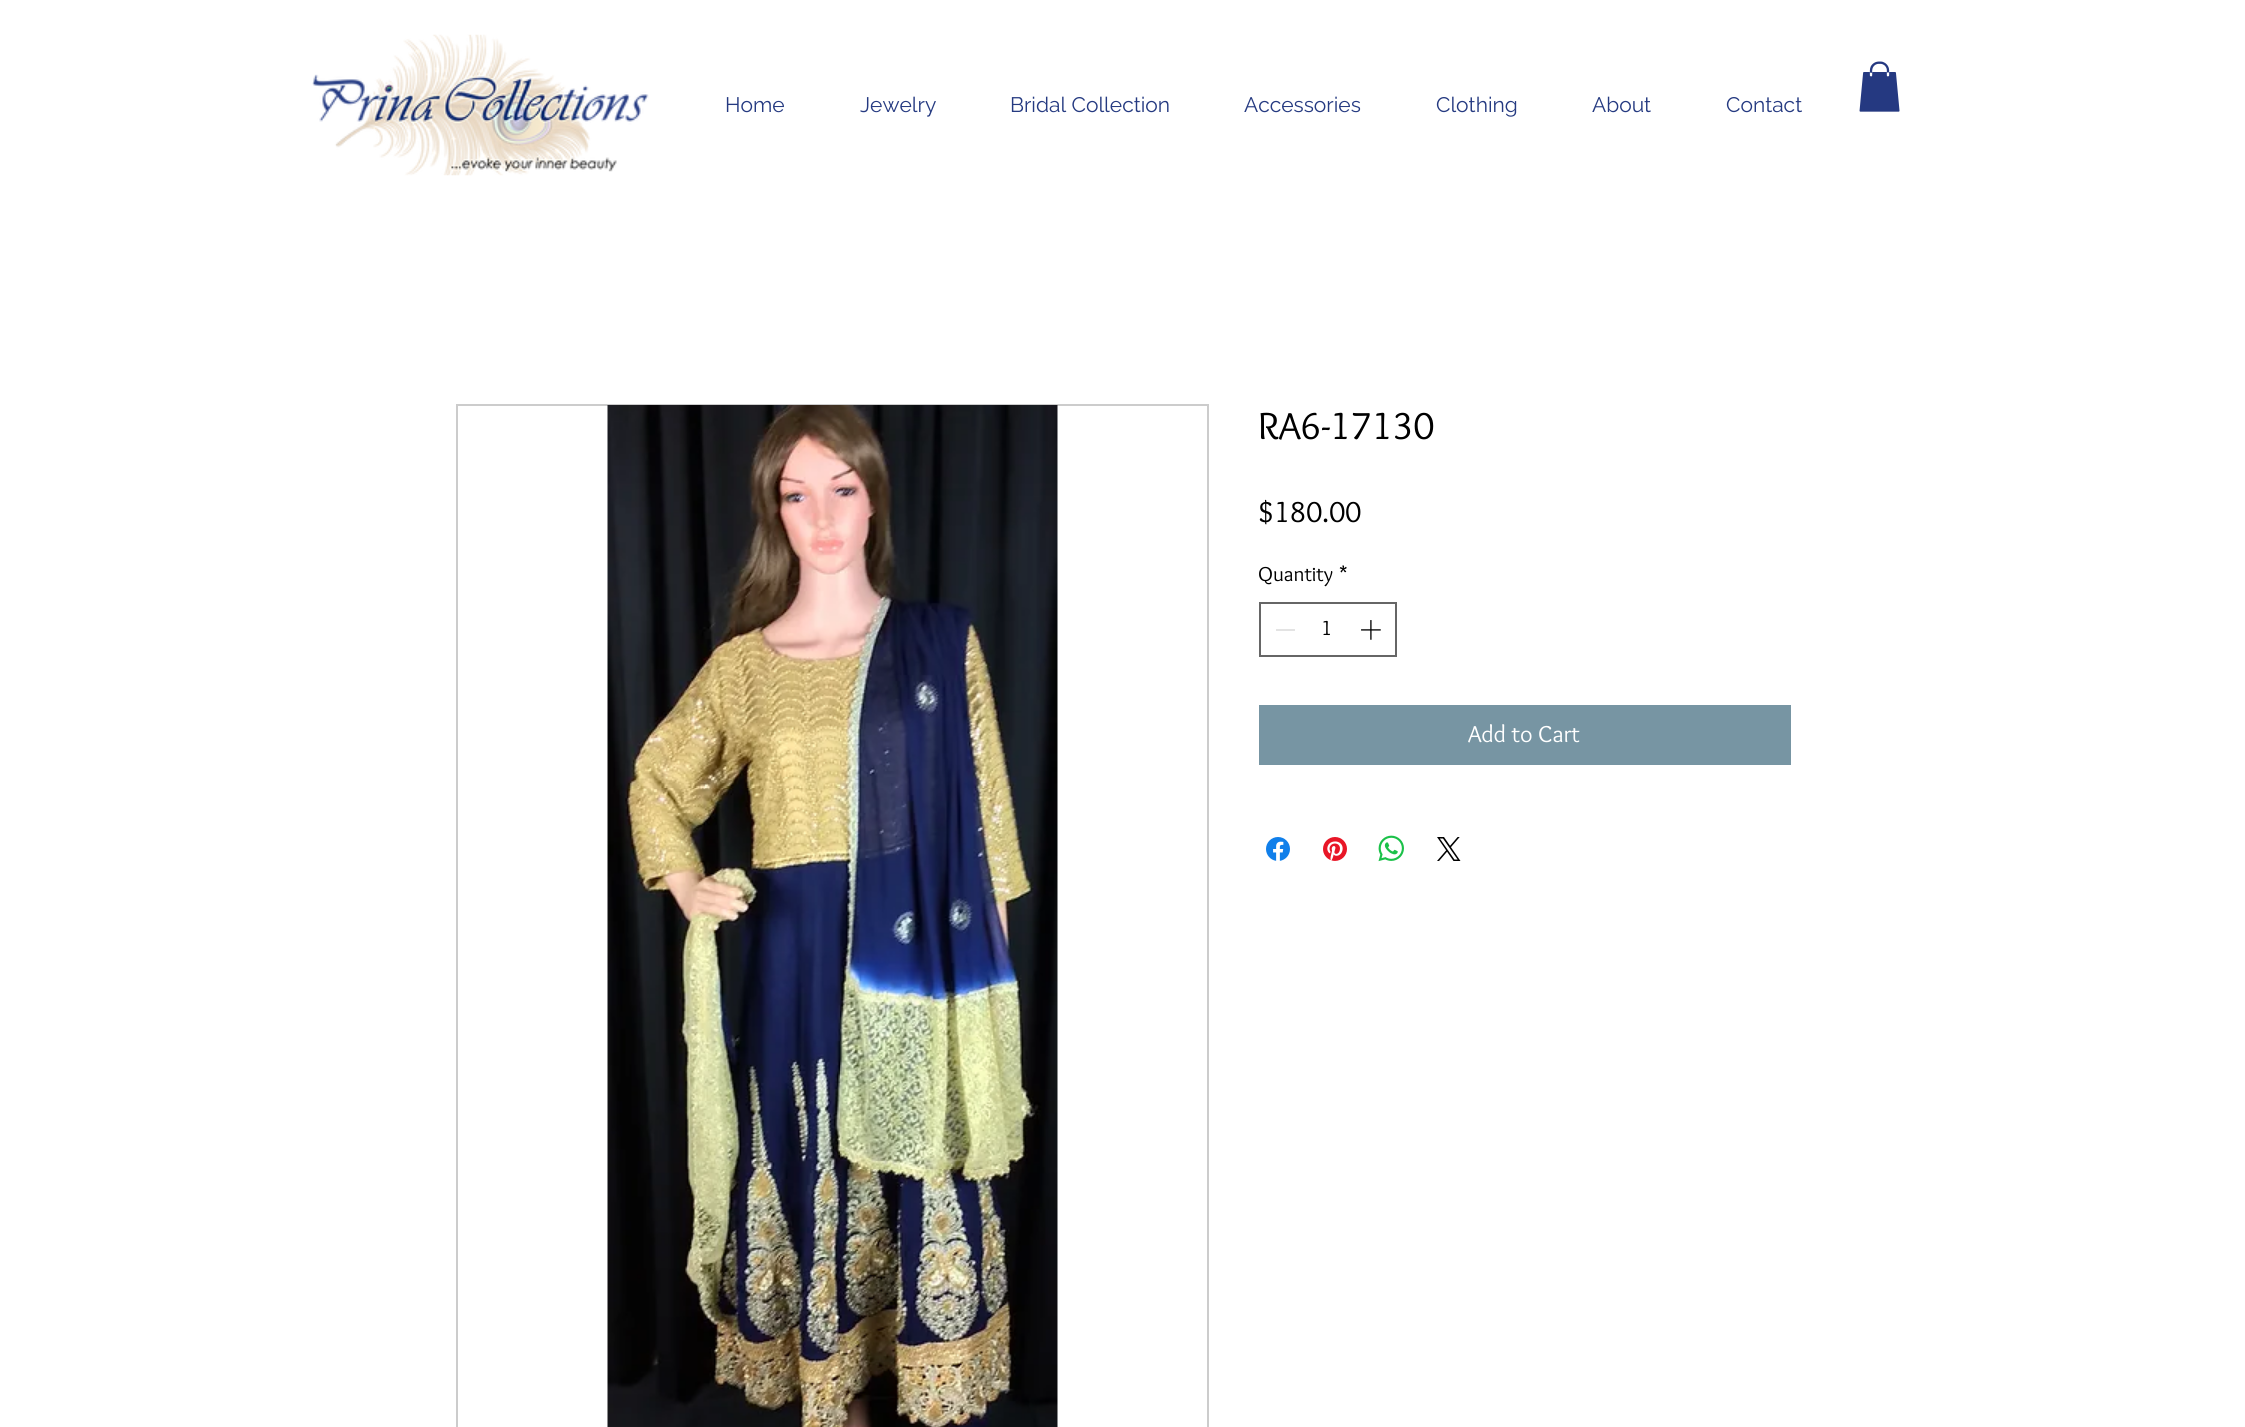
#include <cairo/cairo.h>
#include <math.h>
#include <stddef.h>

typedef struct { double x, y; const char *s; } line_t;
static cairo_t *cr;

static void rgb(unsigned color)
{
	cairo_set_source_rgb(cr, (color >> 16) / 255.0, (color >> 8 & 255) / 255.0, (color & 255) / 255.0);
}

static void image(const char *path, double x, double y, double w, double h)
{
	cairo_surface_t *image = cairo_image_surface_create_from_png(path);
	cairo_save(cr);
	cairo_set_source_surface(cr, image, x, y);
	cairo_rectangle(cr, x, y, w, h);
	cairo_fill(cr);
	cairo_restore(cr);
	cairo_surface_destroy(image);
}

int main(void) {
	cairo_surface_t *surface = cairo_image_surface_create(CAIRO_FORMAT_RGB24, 2245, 1427);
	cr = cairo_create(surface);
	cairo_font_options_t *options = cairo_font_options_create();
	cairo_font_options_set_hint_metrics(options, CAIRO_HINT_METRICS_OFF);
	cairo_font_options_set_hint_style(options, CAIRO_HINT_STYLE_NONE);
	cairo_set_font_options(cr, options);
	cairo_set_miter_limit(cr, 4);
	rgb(0xffffff);
	cairo_paint(cr);
	image("img/1.png", 312, 34, 337, 142);
	image("img/2.png", 1859, 61, 41, 51);
	cairo_rectangle(cr, 457, 405, 751, 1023);
	rgb(0xcccccc);
	cairo_stroke(cr);
	image("img/3.png", 607, 405, 451, 1022);
	cairo_rectangle(cr, 1260, 603, 136, 53);
	rgb(0x666666);
	cairo_stroke(cr);
	rgb(0xe3e3e3);
	cairo_rectangle(cr, 1276, 629, 19, 2);
	cairo_fill(cr);
	image("img/4.png", 1361, 620, 20, 20);
	rgb(0x7795a3);
	cairo_rectangle(cr, 1259, 705, 532, 60);
	cairo_fill(cr);
	image("img/5.png", 1266, 837, 24, 24);
	image("img/6.png", 1323, 837, 24, 24);
	image("img/7.png", 1378, 835, 26, 27);
	image("img/8.png", 1437, 837, 24, 24);
	cairo_select_font_face(cr, "Raleway", CAIRO_FONT_SLANT_NORMAL, CAIRO_FONT_WEIGHT_NORMAL);
	cairo_set_font_size(cr, 21);
	rgb(0x253a81);
	{
		static const line_t items[] = {
			{725, 112, "Home"},
			{860, 112, "Jewelry"},
			{1010, 112, "Bridal Collection"},
			{1244, 112, "Accessories"},
			{1436, 112, "Clothing"},
			{1592, 112, "About"},
			{1726, 112, "Contact"},
		};
		for (size_t i = 0; i < sizeof items / sizeof *items; i++) {
			cairo_move_to(cr, items[i].x, items[i].y);
			cairo_show_text(cr, items[i].s);
		}
	}
	cairo_select_font_face(cr, "Overlock", CAIRO_FONT_SLANT_NORMAL, CAIRO_FONT_WEIGHT_NORMAL);
	cairo_set_font_size(cr, 39);
	rgb(0x000000);
	cairo_move_to(cr, 1258, 439);
	cairo_show_text(cr, "RA6-17130");
	cairo_set_font_size(cr, 30);
	cairo_move_to(cr, 1258, 522);
	cairo_show_text(cr, "$180.00");
	cairo_set_font_size(cr, 21);
	{
		static const line_t items[] = {
			{1258, 581, "Quantity"},
			{1339, 581, "*"},
			{1321, 635, "1"},
		};
		for (size_t i = 0; i < sizeof items / sizeof *items; i++) {
			cairo_move_to(cr, items[i].x, items[i].y);
			cairo_show_text(cr, items[i].s);
		}
	}
	cairo_set_font_size(cr, 24);
	rgb(0xffffff);
	cairo_move_to(cr, 1468, 742);
	cairo_show_text(cr, "Add to Cart");
	cairo_surface_write_to_png(surface, "page.png");
	cairo_font_options_destroy(options);
	cairo_destroy(cr);
	cairo_surface_destroy(surface);
	return 0;
}
